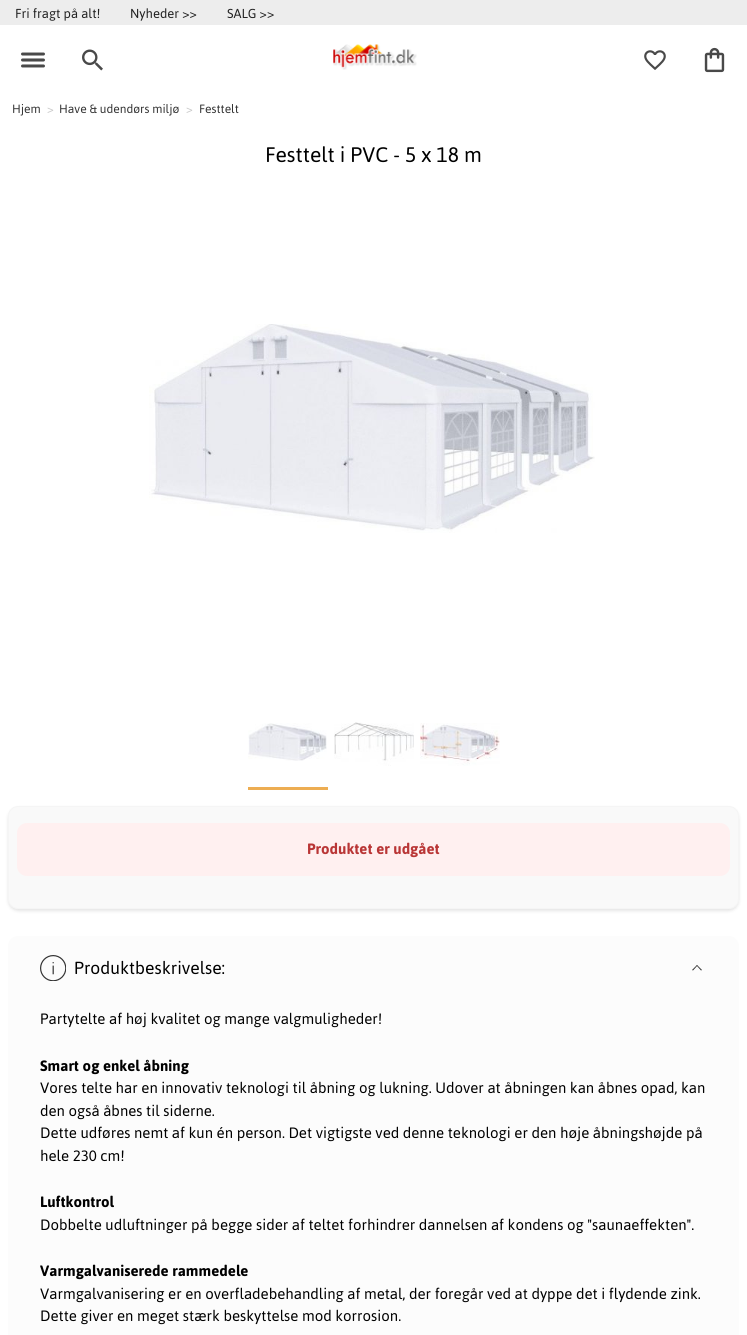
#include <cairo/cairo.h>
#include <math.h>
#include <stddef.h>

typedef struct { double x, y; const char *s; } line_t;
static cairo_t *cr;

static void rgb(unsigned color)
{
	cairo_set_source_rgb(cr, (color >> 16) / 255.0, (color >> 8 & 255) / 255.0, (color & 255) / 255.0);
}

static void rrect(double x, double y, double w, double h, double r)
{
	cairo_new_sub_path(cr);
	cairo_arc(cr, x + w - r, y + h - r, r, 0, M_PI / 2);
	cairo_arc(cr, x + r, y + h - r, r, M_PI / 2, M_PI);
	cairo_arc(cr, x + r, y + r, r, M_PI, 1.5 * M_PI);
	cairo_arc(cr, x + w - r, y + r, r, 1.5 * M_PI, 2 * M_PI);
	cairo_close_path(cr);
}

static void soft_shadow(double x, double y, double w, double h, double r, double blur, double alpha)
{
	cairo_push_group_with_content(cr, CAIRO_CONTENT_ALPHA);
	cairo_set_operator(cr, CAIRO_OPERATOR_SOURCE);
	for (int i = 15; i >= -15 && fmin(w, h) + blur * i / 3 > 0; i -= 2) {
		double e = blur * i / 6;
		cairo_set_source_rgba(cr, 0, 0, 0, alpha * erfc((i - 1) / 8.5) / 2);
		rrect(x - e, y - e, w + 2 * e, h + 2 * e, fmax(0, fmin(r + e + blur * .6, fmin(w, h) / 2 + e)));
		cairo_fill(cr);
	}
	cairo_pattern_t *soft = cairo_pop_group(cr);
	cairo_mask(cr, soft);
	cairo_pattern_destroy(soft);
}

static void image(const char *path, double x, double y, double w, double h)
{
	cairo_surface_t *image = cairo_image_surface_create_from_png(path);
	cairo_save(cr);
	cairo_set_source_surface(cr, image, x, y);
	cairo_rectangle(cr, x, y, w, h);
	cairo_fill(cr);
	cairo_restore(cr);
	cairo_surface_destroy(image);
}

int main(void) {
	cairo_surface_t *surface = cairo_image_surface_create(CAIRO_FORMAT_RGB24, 747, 1335);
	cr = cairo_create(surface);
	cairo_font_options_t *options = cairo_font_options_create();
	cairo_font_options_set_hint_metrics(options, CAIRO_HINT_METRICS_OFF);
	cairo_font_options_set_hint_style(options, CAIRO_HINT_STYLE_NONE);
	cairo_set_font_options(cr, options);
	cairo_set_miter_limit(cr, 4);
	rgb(0xffffff);
	cairo_paint(cr);
	rgb(0xededed);
	cairo_rectangle(cr, 0, 0, 747, 25);
	cairo_fill(cr);
	image("img/1.png", 21, 52, 24, 16);
	image("img/2.png", 82, 49, 21, 22);
	image("img/3.png", 333, 44, 84, 26);
	image("img/4.png", 644, 50, 22, 20);
	image("img/5.png", 704, 47, 21, 26);
	image("img/6.png", 149, 324, 446, 209);
	rgb(0xedad52);
	cairo_rectangle(cr, 248, 787, 80, 3);
	cairo_fill(cr);
	image("img/7.png", 248, 723, 79, 38);
	image("img/8.png", 334, 722, 80, 44);
	image("img/9.png", 420, 723, 80, 43);
	rgb(0x000000);
	soft_shadow(8, 808, 731, 103, 10, 1.5, 0.1);
	rgb(0xf9f9f9);
	rrect(8.5, 806.5, 730, 102, 9.5);
	cairo_fill_preserve(cr);
	rgb(0xf5f5f5);
	cairo_set_line_width(cr, 1);
	cairo_stroke(cr);
	rgb(0xfff0f0);
	rrect(17, 823, 713, 53, 10);
	cairo_fill(cr);
	cairo_set_source_rgba(cr, 0.976, 0.976, 0.976, 0.47);
	rrect(8, 936, 731, 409, 10);
	cairo_fill(cr);
	image("img/10.png", 40, 955, 26, 26);
	rgb(0x333333);
	cairo_new_path(cr);
	cairo_move_to(cr, 692, 970);
	cairo_line_to(cr, 697, 965);
	cairo_line_to(cr, 697.5, 965.5);
	cairo_line_to(cr, 693, 970.5);
	cairo_close_path(cr);
	cairo_fill(cr);
	cairo_new_path(cr);
	cairo_move_to(cr, 696.5, 965.5);
	cairo_line_to(cr, 697, 965);
	cairo_line_to(cr, 702, 970);
	cairo_line_to(cr, 701, 970.5);
	cairo_close_path(cr);
	cairo_fill(cr);
	cairo_select_font_face(cr, "Asap", CAIRO_FONT_SLANT_NORMAL, CAIRO_FONT_WEIGHT_NORMAL);
	cairo_set_font_size(cr, 13);
	rgb(0x222222);
	{
		static const line_t items[] = {
			{15, 18, "Fri fragt på alt!"},
			{130, 18, "Nyheder >>"},
			{227, 18, "SALG >>"},
		};
		for (size_t i = 0; i < sizeof items / sizeof *items; i++) {
			cairo_move_to(cr, items[i].x, items[i].y);
			cairo_show_text(cr, items[i].s);
		}
	}
	cairo_set_font_size(cr, 12);
	rgb(0x333333);
	cairo_move_to(cr, 12, 113);
	cairo_show_text(cr, "Hjem");
	rgb(0xc9c9c9);
	cairo_move_to(cr, 47, 113);
	cairo_show_text(cr, ">");
	rgb(0x333333);
	cairo_move_to(cr, 59, 113);
	cairo_show_text(cr, "Have & udendørs miljø");
	rgb(0xc9c9c9);
	cairo_move_to(cr, 186, 113);
	cairo_show_text(cr, ">");
	rgb(0x333333);
	cairo_move_to(cr, 199, 113);
	cairo_show_text(cr, "Festtelt");
	cairo_set_font_size(cr, 21);
	rgb(0x000000);
	cairo_move_to(cr, 265, 162);
	cairo_show_text(cr, "Festtelt i PVC - 5 x 18 m");
	cairo_select_font_face(cr, "Asap", CAIRO_FONT_SLANT_NORMAL, CAIRO_FONT_WEIGHT_BOLD);
	cairo_set_font_size(cr, 15);
	rgb(0xb93636);
	cairo_move_to(cr, 307, 854);
	cairo_show_text(cr, "Produktet er udgået");
	cairo_select_font_face(cr, "Asap", CAIRO_FONT_SLANT_NORMAL, CAIRO_FONT_WEIGHT_NORMAL);
	cairo_set_font_size(cr, 17.5);
	rgb(0x000000);
	cairo_move_to(cr, 74, 974);
	cairo_show_text(cr, "Produktbeskrivelse:");
	cairo_set_font_size(cr, 15);
	cairo_move_to(cr, 40, 1024);
	cairo_show_text(cr, "Partytelte af høj kvalitet og mange valgmuligheder!");
	cairo_select_font_face(cr, "Asap", CAIRO_FONT_SLANT_NORMAL, CAIRO_FONT_WEIGHT_BOLD);
	cairo_move_to(cr, 40, 1071);
	cairo_show_text(cr, "Smart og enkel åbning");
	cairo_select_font_face(cr, "Asap", CAIRO_FONT_SLANT_NORMAL, CAIRO_FONT_WEIGHT_NORMAL);
	{
		static const line_t items[] = {
			{40, 1093, "Vores telte har en innovativ teknologi til åbning og lukning. Udover at åbningen kan åbnes opad, kan"},
			{40, 1116, "den også åbnes til siderne."},
			{40, 1138, "Dette udføres nemt af kun én person. Det vigtigste ved denne teknologi er den høje åbningshøjde på"},
			{40, 1161, "hele 230 cm!"},
		};
		for (size_t i = 0; i < sizeof items / sizeof *items; i++) {
			cairo_move_to(cr, items[i].x, items[i].y);
			cairo_show_text(cr, items[i].s);
		}
	}
	cairo_select_font_face(cr, "Asap", CAIRO_FONT_SLANT_NORMAL, CAIRO_FONT_WEIGHT_BOLD);
	cairo_move_to(cr, 40, 1207);
	cairo_show_text(cr, "Luftkontrol");
	cairo_select_font_face(cr, "Asap", CAIRO_FONT_SLANT_NORMAL, CAIRO_FONT_WEIGHT_NORMAL);
	cairo_move_to(cr, 40, 1230);
	cairo_show_text(cr, "Dobbelte udluftninger på begge sider af teltet forhindrer dannelsen af kondens og \"saunaeffekten\".");
	cairo_select_font_face(cr, "Asap", CAIRO_FONT_SLANT_NORMAL, CAIRO_FONT_WEIGHT_BOLD);
	cairo_move_to(cr, 40, 1276);
	cairo_show_text(cr, "Varmgalvaniserede rammedele");
	cairo_select_font_face(cr, "Asap", CAIRO_FONT_SLANT_NORMAL, CAIRO_FONT_WEIGHT_NORMAL);
	cairo_move_to(cr, 40, 1299);
	cairo_show_text(cr, "Varmgalvanisering er en overfladebehandling af metal, der foregår ved at dyppe det i flydende zink.");
	cairo_move_to(cr, 40, 1321);
	cairo_show_text(cr, "Dette giver en meget stærk beskyttelse mod korrosion.");
	cairo_surface_write_to_png(surface, "page.png");
	cairo_font_options_destroy(options);
	cairo_destroy(cr);
	cairo_surface_destroy(surface);
	return 0;
}
